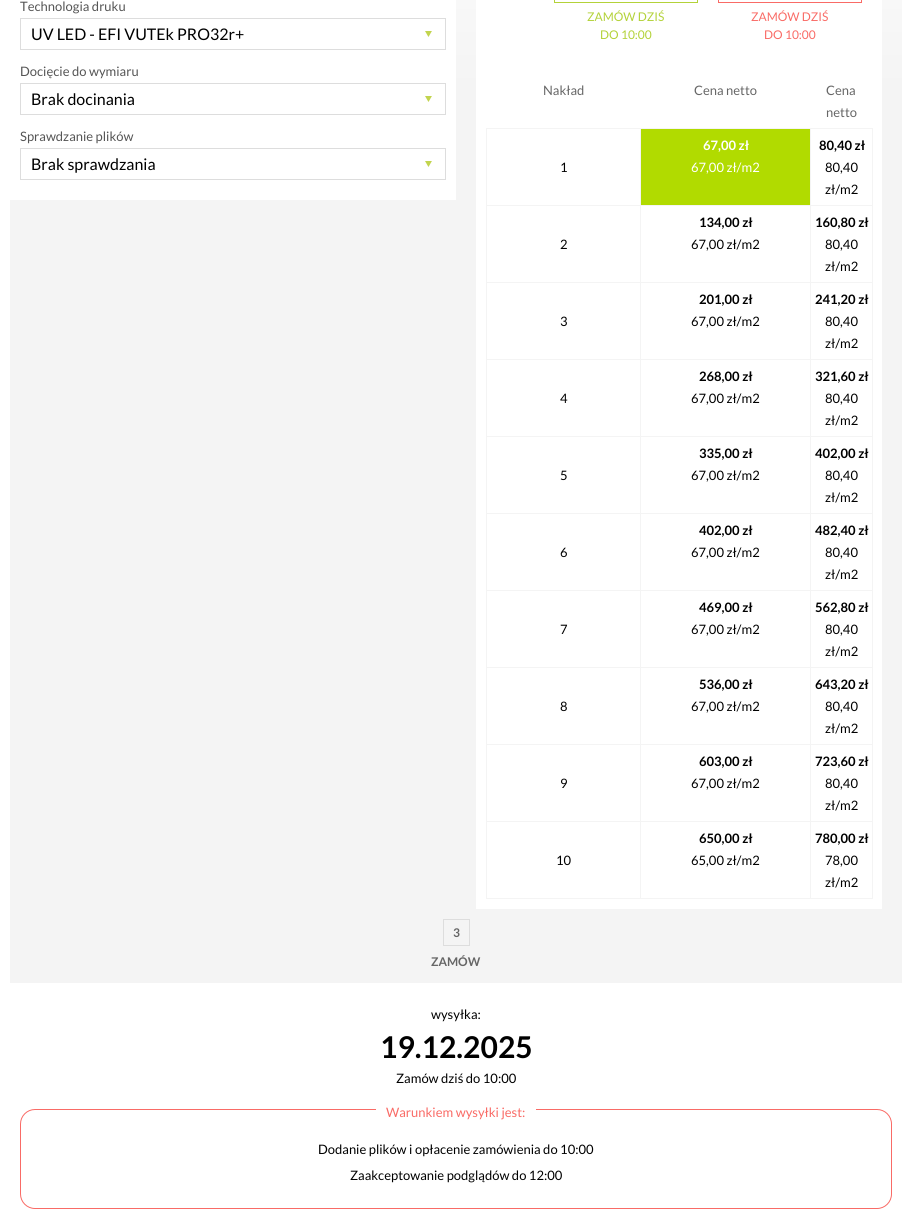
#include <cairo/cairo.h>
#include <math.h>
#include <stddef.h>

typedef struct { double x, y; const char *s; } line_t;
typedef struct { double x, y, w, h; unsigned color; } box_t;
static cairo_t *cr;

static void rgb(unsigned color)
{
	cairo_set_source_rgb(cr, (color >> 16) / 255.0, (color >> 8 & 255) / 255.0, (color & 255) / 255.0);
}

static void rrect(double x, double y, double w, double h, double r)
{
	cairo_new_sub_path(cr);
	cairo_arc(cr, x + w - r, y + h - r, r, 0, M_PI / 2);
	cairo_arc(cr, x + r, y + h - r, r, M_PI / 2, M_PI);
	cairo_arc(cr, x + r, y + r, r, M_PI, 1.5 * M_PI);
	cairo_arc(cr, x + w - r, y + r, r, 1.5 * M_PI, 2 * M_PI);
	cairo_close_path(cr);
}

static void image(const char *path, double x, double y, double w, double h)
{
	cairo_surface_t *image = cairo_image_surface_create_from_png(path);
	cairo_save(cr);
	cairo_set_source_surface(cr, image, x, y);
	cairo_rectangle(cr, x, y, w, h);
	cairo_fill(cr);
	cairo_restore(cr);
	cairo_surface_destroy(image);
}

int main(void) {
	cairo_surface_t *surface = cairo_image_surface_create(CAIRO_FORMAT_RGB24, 912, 1210);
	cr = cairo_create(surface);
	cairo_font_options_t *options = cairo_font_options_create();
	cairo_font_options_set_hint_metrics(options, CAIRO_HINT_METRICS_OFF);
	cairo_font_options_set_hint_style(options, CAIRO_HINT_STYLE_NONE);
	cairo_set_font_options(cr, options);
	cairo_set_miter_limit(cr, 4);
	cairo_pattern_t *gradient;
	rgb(0xffffff);
	cairo_paint(cr);
	gradient = cairo_pattern_create_linear(456, 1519, 456, -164);
	cairo_pattern_add_color_stop_rgba(gradient, 0, 1, 1, 1, 1);
	cairo_pattern_add_color_stop_rgba(gradient, 0.15, 0.957, 0.957, 0.957, 1);
	cairo_pattern_add_color_stop_rgba(gradient, 0.85, 0.957, 0.957, 0.957, 1);
	cairo_pattern_add_color_stop_rgba(gradient, 1, 1, 1, 1, 1);
	cairo_set_source(cr, gradient);
	cairo_pattern_destroy(gradient);
	cairo_rectangle(cr, 10, 0, 892, 983);
	cairo_fill(cr);
	rgb(0xffffff);
	cairo_rectangle(cr, 10, 0, 446, 200);
	cairo_fill(cr);
	image("img/1.png", 425, 31, 7, 6);
	cairo_rectangle(cr, 20.5, 18.5, 425, 31);
	rgb(0xdddddd);
	cairo_set_line_width(cr, 1);
	cairo_stroke(cr);
	image("img/1.png", 425, 96, 7, 6);
	cairo_rectangle(cr, 20.5, 83.5, 425, 31);
	cairo_stroke(cr);
	image("img/1.png", 425, 161, 7, 6);
	cairo_rectangle(cr, 20.5, 148.5, 425, 31);
	cairo_stroke(cr);
	rgb(0xffffff);
	cairo_rectangle(cr, 476, 0, 406, 909);
	cairo_fill(cr);
	cairo_rectangle(cr, 554.5, -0.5, 143, 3);
	rgb(0xb3d239);
	cairo_stroke(cr);
	cairo_rectangle(cr, 718.5, -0.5, 143, 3);
	rgb(0xf96b66);
	cairo_stroke(cr);
	{
		static const box_t items[] = {
			{486, 128, 387, 1, 0xf4f4f4},
			{872, 128, 1, 771, 0xf4f4f4},
			{486, 898, 387, 1, 0xf4f4f4},
			{486, 128, 1, 771, 0xf4f4f4},
			{641, 129, 169, 76, 0xb1db00},
			{810, 205, 63, 1, 0xf4f4f4},
			{810, 282, 63, 1, 0xf4f4f4},
			{810, 359, 63, 1, 0xf4f4f4},
			{810, 436, 63, 1, 0xf4f4f4},
			{810, 513, 63, 1, 0xf4f4f4},
			{810, 590, 63, 1, 0xf4f4f4},
			{810, 667, 63, 1, 0xf4f4f4},
			{810, 744, 63, 1, 0xf4f4f4},
			{810, 821, 63, 1, 0xf4f4f4},
			{810, 821, 1, 78, 0xf4f4f4},
			{640, 821, 171, 1, 0xf4f4f4},
			{810, 744, 1, 78, 0xf4f4f4},
			{640, 744, 171, 1, 0xf4f4f4},
			{810, 667, 1, 78, 0xf4f4f4},
			{640, 667, 171, 1, 0xf4f4f4},
			{810, 590, 1, 78, 0xf4f4f4},
			{640, 590, 171, 1, 0xf4f4f4},
			{810, 513, 1, 78, 0xf4f4f4},
			{640, 513, 171, 1, 0xf4f4f4},
			{810, 436, 1, 78, 0xf4f4f4},
			{640, 436, 171, 1, 0xf4f4f4},
			{810, 359, 1, 78, 0xf4f4f4},
			{640, 359, 171, 1, 0xf4f4f4},
			{810, 282, 1, 78, 0xf4f4f4},
			{640, 282, 171, 1, 0xf4f4f4},
			{810, 205, 1, 78, 0xf4f4f4},
			{640, 205, 171, 1, 0xf4f4f4},
			{640, 821, 1, 78, 0xf4f4f4},
			{486, 821, 155, 1, 0xf4f4f4},
			{640, 744, 1, 78, 0xf4f4f4},
			{486, 744, 155, 1, 0xf4f4f4},
			{640, 667, 1, 78, 0xf4f4f4},
			{486, 667, 155, 1, 0xf4f4f4},
			{640, 590, 1, 78, 0xf4f4f4},
			{486, 590, 155, 1, 0xf4f4f4},
			{640, 513, 1, 78, 0xf4f4f4},
			{486, 513, 155, 1, 0xf4f4f4},
			{640, 436, 1, 78, 0xf4f4f4},
			{486, 436, 155, 1, 0xf4f4f4},
			{640, 359, 1, 78, 0xf4f4f4},
			{486, 359, 155, 1, 0xf4f4f4},
			{640, 282, 1, 78, 0xf4f4f4},
			{486, 282, 155, 1, 0xf4f4f4},
			{640, 205, 1, 78, 0xf4f4f4},
			{486, 205, 155, 1, 0xf4f4f4},
			{640, 128, 1, 78, 0xf4f4f4},
			{810, 128, 1, 78, 0xf4f4f4},
		};
		for (size_t i = 0; i < sizeof items / sizeof *items; i++) {
			rgb(items[i].color);
			cairo_rectangle(cr, items[i].x, items[i].y, items[i].w, items[i].h);
			cairo_fill(cr);
		}
	}
	cairo_rectangle(cr, 443.5, 919.5, 26, 26);
	rgb(0xdddddd);
	cairo_stroke(cr);
	rrect(20.5, 1109.5, 871, 99, 14.5);
	rgb(0xf96b66);
	cairo_stroke(cr);
	rgb(0xffffff);
	cairo_rectangle(cr, 376, 1109, 160, 1);
	cairo_fill(cr);
	cairo_select_font_face(cr, "Lato", CAIRO_FONT_SLANT_NORMAL, CAIRO_FONT_WEIGHT_NORMAL);
	cairo_set_font_size(cr, 13);
	rgb(0x555555);
	cairo_move_to(cr, 20, 11);
	cairo_show_text(cr, "Technologia druku");
	cairo_set_font_size(cr, 16);
	rgb(0x000000);
	cairo_move_to(cr, 31, 40);
	cairo_show_text(cr, "UV LED - EFI VUTEk PRO32r+");
	cairo_set_font_size(cr, 13);
	rgb(0x555555);
	cairo_move_to(cr, 20, 76);
	cairo_show_text(cr, "Docięcie do wymiaru");
	cairo_set_font_size(cr, 16);
	rgb(0x000000);
	cairo_move_to(cr, 31, 105);
	cairo_show_text(cr, "Brak docinania");
	cairo_set_font_size(cr, 13);
	rgb(0x555555);
	cairo_move_to(cr, 20, 141);
	cairo_show_text(cr, "Sprawdzanie plików");
	cairo_set_font_size(cr, 16);
	rgb(0x000000);
	cairo_move_to(cr, 31, 170);
	cairo_show_text(cr, "Brak sprawdzania");
	cairo_set_font_size(cr, 12);
	rgb(0xb3d239);
	cairo_move_to(cr, 587, 21);
	cairo_show_text(cr, "ZAMÓW DZIŚ");
	cairo_move_to(cr, 600, 39);
	cairo_show_text(cr, "DO 10:00");
	rgb(0xf96b66);
	cairo_move_to(cr, 751, 21);
	cairo_show_text(cr, "ZAMÓW DZIŚ");
	cairo_move_to(cr, 764, 39);
	cairo_show_text(cr, "DO 10:00");
	cairo_set_font_size(cr, 13);
	rgb(0x666666);
	{
		static const line_t items[] = {
			{543, 95, "Nakład"},
			{694, 95, "Cena netto"},
			{826, 95, "Cena"},
			{826, 117, "netto"},
		};
		for (size_t i = 0; i < sizeof items / sizeof *items; i++) {
			cairo_move_to(cr, items[i].x, items[i].y);
			cairo_show_text(cr, items[i].s);
		}
	}
	rgb(0x000000);
	cairo_move_to(cr, 560, 172);
	cairo_show_text(cr, "1");
	cairo_select_font_face(cr, "Lato", CAIRO_FONT_SLANT_NORMAL, CAIRO_FONT_WEIGHT_BOLD);
	rgb(0xffffff);
	cairo_move_to(cr, 703, 150);
	cairo_show_text(cr, "67,00 zł");
	cairo_select_font_face(cr, "Lato", CAIRO_FONT_SLANT_NORMAL, CAIRO_FONT_WEIGHT_NORMAL);
	cairo_move_to(cr, 691, 172);
	cairo_show_text(cr, "67,00 zł/m2");
	cairo_select_font_face(cr, "Lato", CAIRO_FONT_SLANT_NORMAL, CAIRO_FONT_WEIGHT_BOLD);
	rgb(0x000000);
	cairo_move_to(cr, 819, 150);
	cairo_show_text(cr, "80,40 zł");
	cairo_select_font_face(cr, "Lato", CAIRO_FONT_SLANT_NORMAL, CAIRO_FONT_WEIGHT_NORMAL);
	{
		static const line_t items[] = {
			{825, 172, "80,40"},
			{825, 194, "zł/m2"},
			{560, 249, "2"},
		};
		for (size_t i = 0; i < sizeof items / sizeof *items; i++) {
			cairo_move_to(cr, items[i].x, items[i].y);
			cairo_show_text(cr, items[i].s);
		}
	}
	cairo_select_font_face(cr, "Lato", CAIRO_FONT_SLANT_NORMAL, CAIRO_FONT_WEIGHT_BOLD);
	cairo_move_to(cr, 699, 227);
	cairo_show_text(cr, "134,00 zł");
	cairo_select_font_face(cr, "Lato", CAIRO_FONT_SLANT_NORMAL, CAIRO_FONT_WEIGHT_NORMAL);
	cairo_move_to(cr, 691, 249);
	cairo_show_text(cr, "67,00 zł/m2");
	cairo_select_font_face(cr, "Lato", CAIRO_FONT_SLANT_NORMAL, CAIRO_FONT_WEIGHT_BOLD);
	cairo_move_to(cr, 815, 227);
	cairo_show_text(cr, "160,80 zł");
	cairo_select_font_face(cr, "Lato", CAIRO_FONT_SLANT_NORMAL, CAIRO_FONT_WEIGHT_NORMAL);
	{
		static const line_t items[] = {
			{825, 249, "80,40"},
			{825, 271, "zł/m2"},
			{560, 326, "3"},
		};
		for (size_t i = 0; i < sizeof items / sizeof *items; i++) {
			cairo_move_to(cr, items[i].x, items[i].y);
			cairo_show_text(cr, items[i].s);
		}
	}
	cairo_select_font_face(cr, "Lato", CAIRO_FONT_SLANT_NORMAL, CAIRO_FONT_WEIGHT_BOLD);
	cairo_move_to(cr, 699, 304);
	cairo_show_text(cr, "201,00 zł");
	cairo_select_font_face(cr, "Lato", CAIRO_FONT_SLANT_NORMAL, CAIRO_FONT_WEIGHT_NORMAL);
	cairo_move_to(cr, 691, 326);
	cairo_show_text(cr, "67,00 zł/m2");
	cairo_select_font_face(cr, "Lato", CAIRO_FONT_SLANT_NORMAL, CAIRO_FONT_WEIGHT_BOLD);
	cairo_move_to(cr, 815, 304);
	cairo_show_text(cr, "241,20 zł");
	cairo_select_font_face(cr, "Lato", CAIRO_FONT_SLANT_NORMAL, CAIRO_FONT_WEIGHT_NORMAL);
	{
		static const line_t items[] = {
			{825, 326, "80,40"},
			{825, 348, "zł/m2"},
			{560, 403, "4"},
		};
		for (size_t i = 0; i < sizeof items / sizeof *items; i++) {
			cairo_move_to(cr, items[i].x, items[i].y);
			cairo_show_text(cr, items[i].s);
		}
	}
	cairo_select_font_face(cr, "Lato", CAIRO_FONT_SLANT_NORMAL, CAIRO_FONT_WEIGHT_BOLD);
	cairo_move_to(cr, 699, 381);
	cairo_show_text(cr, "268,00 zł");
	cairo_select_font_face(cr, "Lato", CAIRO_FONT_SLANT_NORMAL, CAIRO_FONT_WEIGHT_NORMAL);
	cairo_move_to(cr, 691, 403);
	cairo_show_text(cr, "67,00 zł/m2");
	cairo_select_font_face(cr, "Lato", CAIRO_FONT_SLANT_NORMAL, CAIRO_FONT_WEIGHT_BOLD);
	cairo_move_to(cr, 815, 381);
	cairo_show_text(cr, "321,60 zł");
	cairo_select_font_face(cr, "Lato", CAIRO_FONT_SLANT_NORMAL, CAIRO_FONT_WEIGHT_NORMAL);
	{
		static const line_t items[] = {
			{825, 403, "80,40"},
			{825, 425, "zł/m2"},
			{560, 480, "5"},
		};
		for (size_t i = 0; i < sizeof items / sizeof *items; i++) {
			cairo_move_to(cr, items[i].x, items[i].y);
			cairo_show_text(cr, items[i].s);
		}
	}
	cairo_select_font_face(cr, "Lato", CAIRO_FONT_SLANT_NORMAL, CAIRO_FONT_WEIGHT_BOLD);
	cairo_move_to(cr, 699, 458);
	cairo_show_text(cr, "335,00 zł");
	cairo_select_font_face(cr, "Lato", CAIRO_FONT_SLANT_NORMAL, CAIRO_FONT_WEIGHT_NORMAL);
	cairo_move_to(cr, 691, 480);
	cairo_show_text(cr, "67,00 zł/m2");
	cairo_select_font_face(cr, "Lato", CAIRO_FONT_SLANT_NORMAL, CAIRO_FONT_WEIGHT_BOLD);
	cairo_move_to(cr, 815, 458);
	cairo_show_text(cr, "402,00 zł");
	cairo_select_font_face(cr, "Lato", CAIRO_FONT_SLANT_NORMAL, CAIRO_FONT_WEIGHT_NORMAL);
	{
		static const line_t items[] = {
			{825, 480, "80,40"},
			{825, 502, "zł/m2"},
			{560, 557, "6"},
		};
		for (size_t i = 0; i < sizeof items / sizeof *items; i++) {
			cairo_move_to(cr, items[i].x, items[i].y);
			cairo_show_text(cr, items[i].s);
		}
	}
	cairo_select_font_face(cr, "Lato", CAIRO_FONT_SLANT_NORMAL, CAIRO_FONT_WEIGHT_BOLD);
	cairo_move_to(cr, 699, 535);
	cairo_show_text(cr, "402,00 zł");
	cairo_select_font_face(cr, "Lato", CAIRO_FONT_SLANT_NORMAL, CAIRO_FONT_WEIGHT_NORMAL);
	cairo_move_to(cr, 691, 557);
	cairo_show_text(cr, "67,00 zł/m2");
	cairo_select_font_face(cr, "Lato", CAIRO_FONT_SLANT_NORMAL, CAIRO_FONT_WEIGHT_BOLD);
	cairo_move_to(cr, 815, 535);
	cairo_show_text(cr, "482,40 zł");
	cairo_select_font_face(cr, "Lato", CAIRO_FONT_SLANT_NORMAL, CAIRO_FONT_WEIGHT_NORMAL);
	{
		static const line_t items[] = {
			{825, 557, "80,40"},
			{825, 579, "zł/m2"},
			{560, 634, "7"},
		};
		for (size_t i = 0; i < sizeof items / sizeof *items; i++) {
			cairo_move_to(cr, items[i].x, items[i].y);
			cairo_show_text(cr, items[i].s);
		}
	}
	cairo_select_font_face(cr, "Lato", CAIRO_FONT_SLANT_NORMAL, CAIRO_FONT_WEIGHT_BOLD);
	cairo_move_to(cr, 699, 612);
	cairo_show_text(cr, "469,00 zł");
	cairo_select_font_face(cr, "Lato", CAIRO_FONT_SLANT_NORMAL, CAIRO_FONT_WEIGHT_NORMAL);
	cairo_move_to(cr, 691, 634);
	cairo_show_text(cr, "67,00 zł/m2");
	cairo_select_font_face(cr, "Lato", CAIRO_FONT_SLANT_NORMAL, CAIRO_FONT_WEIGHT_BOLD);
	cairo_move_to(cr, 815, 612);
	cairo_show_text(cr, "562,80 zł");
	cairo_select_font_face(cr, "Lato", CAIRO_FONT_SLANT_NORMAL, CAIRO_FONT_WEIGHT_NORMAL);
	{
		static const line_t items[] = {
			{825, 634, "80,40"},
			{825, 656, "zł/m2"},
			{560, 711, "8"},
		};
		for (size_t i = 0; i < sizeof items / sizeof *items; i++) {
			cairo_move_to(cr, items[i].x, items[i].y);
			cairo_show_text(cr, items[i].s);
		}
	}
	cairo_select_font_face(cr, "Lato", CAIRO_FONT_SLANT_NORMAL, CAIRO_FONT_WEIGHT_BOLD);
	cairo_move_to(cr, 699, 689);
	cairo_show_text(cr, "536,00 zł");
	cairo_select_font_face(cr, "Lato", CAIRO_FONT_SLANT_NORMAL, CAIRO_FONT_WEIGHT_NORMAL);
	cairo_move_to(cr, 691, 711);
	cairo_show_text(cr, "67,00 zł/m2");
	cairo_select_font_face(cr, "Lato", CAIRO_FONT_SLANT_NORMAL, CAIRO_FONT_WEIGHT_BOLD);
	cairo_move_to(cr, 815, 689);
	cairo_show_text(cr, "643,20 zł");
	cairo_select_font_face(cr, "Lato", CAIRO_FONT_SLANT_NORMAL, CAIRO_FONT_WEIGHT_NORMAL);
	{
		static const line_t items[] = {
			{825, 711, "80,40"},
			{825, 733, "zł/m2"},
			{560, 788, "9"},
		};
		for (size_t i = 0; i < sizeof items / sizeof *items; i++) {
			cairo_move_to(cr, items[i].x, items[i].y);
			cairo_show_text(cr, items[i].s);
		}
	}
	cairo_select_font_face(cr, "Lato", CAIRO_FONT_SLANT_NORMAL, CAIRO_FONT_WEIGHT_BOLD);
	cairo_move_to(cr, 699, 766);
	cairo_show_text(cr, "603,00 zł");
	cairo_select_font_face(cr, "Lato", CAIRO_FONT_SLANT_NORMAL, CAIRO_FONT_WEIGHT_NORMAL);
	cairo_move_to(cr, 691, 788);
	cairo_show_text(cr, "67,00 zł/m2");
	cairo_select_font_face(cr, "Lato", CAIRO_FONT_SLANT_NORMAL, CAIRO_FONT_WEIGHT_BOLD);
	cairo_move_to(cr, 815, 766);
	cairo_show_text(cr, "723,60 zł");
	cairo_select_font_face(cr, "Lato", CAIRO_FONT_SLANT_NORMAL, CAIRO_FONT_WEIGHT_NORMAL);
	{
		static const line_t items[] = {
			{825, 788, "80,40"},
			{825, 810, "zł/m2"},
			{556, 865, "10"},
		};
		for (size_t i = 0; i < sizeof items / sizeof *items; i++) {
			cairo_move_to(cr, items[i].x, items[i].y);
			cairo_show_text(cr, items[i].s);
		}
	}
	cairo_select_font_face(cr, "Lato", CAIRO_FONT_SLANT_NORMAL, CAIRO_FONT_WEIGHT_BOLD);
	cairo_move_to(cr, 699, 843);
	cairo_show_text(cr, "650,00 zł");
	cairo_select_font_face(cr, "Lato", CAIRO_FONT_SLANT_NORMAL, CAIRO_FONT_WEIGHT_NORMAL);
	cairo_move_to(cr, 691, 865);
	cairo_show_text(cr, "65,00 zł/m2");
	cairo_select_font_face(cr, "Lato", CAIRO_FONT_SLANT_NORMAL, CAIRO_FONT_WEIGHT_BOLD);
	cairo_move_to(cr, 815, 843);
	cairo_show_text(cr, "780,00 zł");
	cairo_select_font_face(cr, "Lato", CAIRO_FONT_SLANT_NORMAL, CAIRO_FONT_WEIGHT_NORMAL);
	cairo_move_to(cr, 825, 865);
	cairo_show_text(cr, "78,00");
	cairo_move_to(cr, 825, 887);
	cairo_show_text(cr, "zł/m2");
	cairo_select_font_face(cr, "Lato", CAIRO_FONT_SLANT_NORMAL, CAIRO_FONT_WEIGHT_BOLD);
	cairo_set_font_size(cr, 12);
	rgb(0x666666);
	cairo_move_to(cr, 453, 937);
	cairo_show_text(cr, "3");
	cairo_move_to(cr, 431, 966);
	cairo_show_text(cr, "ZAMÓW");
	cairo_select_font_face(cr, "Lato", CAIRO_FONT_SLANT_NORMAL, CAIRO_FONT_WEIGHT_NORMAL);
	cairo_set_font_size(cr, 13);
	rgb(0x000000);
	cairo_move_to(cr, 431, 1019);
	cairo_show_text(cr, "wysyłka:");
	cairo_select_font_face(cr, "Lato", CAIRO_FONT_SLANT_NORMAL, CAIRO_FONT_WEIGHT_BOLD);
	cairo_set_font_size(cr, 30);
	cairo_move_to(cr, 380, 1058);
	cairo_show_text(cr, "19.12.2025");
	cairo_select_font_face(cr, "Lato", CAIRO_FONT_SLANT_NORMAL, CAIRO_FONT_WEIGHT_NORMAL);
	cairo_set_font_size(cr, 13);
	cairo_move_to(cr, 396, 1083);
	cairo_show_text(cr, "Zamów dziś do 10:00");
	rgb(0xf96b66);
	cairo_move_to(cr, 386, 1117);
	cairo_show_text(cr, "Warunkiem wysyłki jest:");
	rgb(0x000000);
	cairo_move_to(cr, 318, 1154);
	cairo_show_text(cr, "Dodanie plików i opłacenie zamówienia do 10:00");
	cairo_move_to(cr, 350, 1180);
	cairo_show_text(cr, "Zaakceptowanie podglądów do 12:00");
	cairo_surface_write_to_png(surface, "page.png");
	cairo_font_options_destroy(options);
	cairo_destroy(cr);
	cairo_surface_destroy(surface);
	return 0;
}
